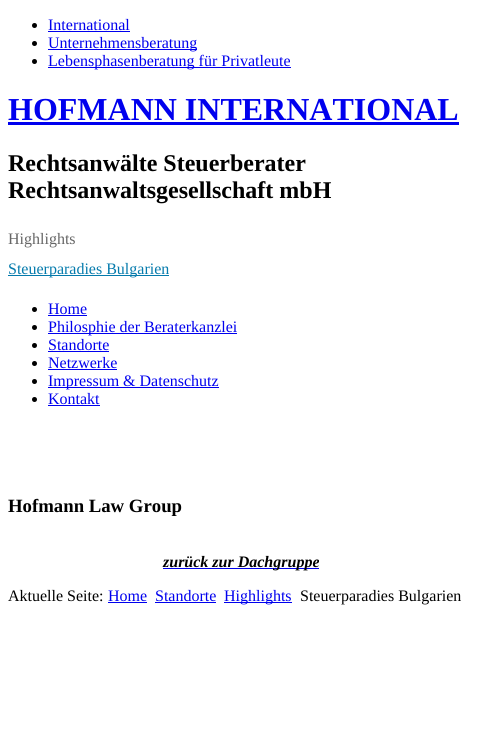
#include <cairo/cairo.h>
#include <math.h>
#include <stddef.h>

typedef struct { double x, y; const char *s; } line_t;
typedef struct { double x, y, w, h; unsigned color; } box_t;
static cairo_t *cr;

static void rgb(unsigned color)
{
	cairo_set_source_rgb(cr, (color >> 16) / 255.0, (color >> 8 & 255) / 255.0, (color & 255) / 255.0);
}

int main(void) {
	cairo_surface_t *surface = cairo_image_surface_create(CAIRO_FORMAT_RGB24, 482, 732);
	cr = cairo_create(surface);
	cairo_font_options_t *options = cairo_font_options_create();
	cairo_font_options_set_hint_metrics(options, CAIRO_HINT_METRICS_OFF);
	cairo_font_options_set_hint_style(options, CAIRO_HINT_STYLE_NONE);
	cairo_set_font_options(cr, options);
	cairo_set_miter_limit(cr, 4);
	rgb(0xffffff);
	cairo_paint(cr);
	rgb(0x000000);
	cairo_arc(cr, 34.5, 25.5, 2.5, 0, 2 * M_PI);
	cairo_fill(cr);
	rgb(0x0000ee);
	cairo_rectangle(cr, 48, 31, 82, 1);
	cairo_fill(cr);
	rgb(0x000000);
	cairo_arc(cr, 34.5, 43.5, 2.5, 0, 2 * M_PI);
	cairo_fill(cr);
	rgb(0x0000ee);
	cairo_rectangle(cr, 48, 49, 149, 1);
	cairo_fill(cr);
	rgb(0x000000);
	cairo_arc(cr, 34.5, 61.5, 2.5, 0, 2 * M_PI);
	cairo_fill(cr);
	{
		static const box_t items[] = {
			{48, 67, 243, 1, 0x0000ee},
			{8, 122, 451, 3, 0x0000ee},
			{8, 275, 161, 1, 0x047aac},
		};
		for (size_t i = 0; i < sizeof items / sizeof *items; i++) {
			rgb(items[i].color);
			cairo_rectangle(cr, items[i].x, items[i].y, items[i].w, items[i].h);
			cairo_fill(cr);
		}
	}
	rgb(0x000000);
	cairo_arc(cr, 34.5, 309.5, 2.5, 0, 2 * M_PI);
	cairo_fill(cr);
	rgb(0x0000ee);
	cairo_rectangle(cr, 48, 315, 39, 1);
	cairo_fill(cr);
	rgb(0x000000);
	cairo_arc(cr, 34.5, 327.5, 2.5, 0, 2 * M_PI);
	cairo_fill(cr);
	rgb(0x0000ee);
	cairo_rectangle(cr, 48, 333, 189, 1);
	cairo_fill(cr);
	rgb(0x000000);
	cairo_arc(cr, 34.5, 345.5, 2.5, 0, 2 * M_PI);
	cairo_fill(cr);
	rgb(0x0000ee);
	cairo_rectangle(cr, 48, 351, 61, 1);
	cairo_fill(cr);
	rgb(0x000000);
	cairo_arc(cr, 34.5, 363.5, 2.5, 0, 2 * M_PI);
	cairo_fill(cr);
	rgb(0x0000ee);
	cairo_rectangle(cr, 48, 369, 69, 1);
	cairo_fill(cr);
	rgb(0x000000);
	cairo_arc(cr, 34.5, 381.5, 2.5, 0, 2 * M_PI);
	cairo_fill(cr);
	rgb(0x0000ee);
	cairo_rectangle(cr, 48, 387, 171, 1);
	cairo_fill(cr);
	rgb(0x000000);
	cairo_arc(cr, 34.5, 399.5, 2.5, 0, 2 * M_PI);
	cairo_fill(cr);
	{
		static const box_t items[] = {
			{48, 405, 52, 1, 0x0000ee},
			{163, 568, 156, 1, 0x0000ee},
			{108, 602, 39, 1, 0x0000ee},
			{155, 602, 61, 1, 0x0000ee},
			{224, 602, 68, 1, 0x0000ee},
		};
		for (size_t i = 0; i < sizeof items / sizeof *items; i++) {
			rgb(items[i].color);
			cairo_rectangle(cr, items[i].x, items[i].y, items[i].w, items[i].h);
			cairo_fill(cr);
		}
	}
	cairo_select_font_face(cr, "Liberation Serif", CAIRO_FONT_SLANT_NORMAL, CAIRO_FONT_WEIGHT_NORMAL);
	cairo_set_font_size(cr, 16);
	{
		static const line_t items[] = {
			{48, 30, "International"},
			{48, 48, "Unternehmensberatung"},
			{48, 66, "Lebensphasenberatung für Privatleute"},
		};
		for (size_t i = 0; i < sizeof items / sizeof *items; i++) {
			cairo_move_to(cr, items[i].x, items[i].y);
			cairo_show_text(cr, items[i].s);
		}
	}
	cairo_select_font_face(cr, "Liberation Serif", CAIRO_FONT_SLANT_NORMAL, CAIRO_FONT_WEIGHT_BOLD);
	cairo_set_font_size(cr, 32);
	cairo_move_to(cr, 8, 120);
	cairo_show_text(cr, "HOFMANN INTERNATIONAL");
	cairo_set_font_size(cr, 24);
	rgb(0x000000);
	cairo_move_to(cr, 8, 171);
	cairo_show_text(cr, "Rechtsanwälte Steuerberater");
	cairo_move_to(cr, 8, 198);
	cairo_show_text(cr, "Rechtsanwaltsgesellschaft mbH");
	cairo_select_font_face(cr, "Liberation Serif", CAIRO_FONT_SLANT_NORMAL, CAIRO_FONT_WEIGHT_NORMAL);
	cairo_set_font_size(cr, 16);
	rgb(0x666666);
	cairo_move_to(cr, 8, 244);
	cairo_show_text(cr, "Highlights");
	rgb(0x047aac);
	cairo_move_to(cr, 8, 274);
	cairo_show_text(cr, "Steuerparadies Bulgarien");
	rgb(0x0000ee);
	{
		static const line_t items[] = {
			{48, 314, "Home"},
			{48, 332, "Philosphie der Beraterkanzlei"},
			{48, 350, "Standorte"},
			{48, 368, "Netzwerke"},
			{48, 386, "Impressum & Datenschutz"},
			{48, 404, "Kontakt"},
		};
		for (size_t i = 0; i < sizeof items / sizeof *items; i++) {
			cairo_move_to(cr, items[i].x, items[i].y);
			cairo_show_text(cr, items[i].s);
		}
	}
	cairo_select_font_face(cr, "Liberation Serif", CAIRO_FONT_SLANT_NORMAL, CAIRO_FONT_WEIGHT_BOLD);
	cairo_set_font_size(cr, 18.75);
	rgb(0x000000);
	cairo_move_to(cr, 8, 512);
	cairo_show_text(cr, "Hofmann Law Group");
	cairo_select_font_face(cr, "Liberation Serif", CAIRO_FONT_SLANT_ITALIC, CAIRO_FONT_WEIGHT_BOLD);
	cairo_set_font_size(cr, 16);
	cairo_move_to(cr, 163, 567);
	cairo_show_text(cr, "zurück zur Dachgruppe");
	cairo_select_font_face(cr, "Liberation Serif", CAIRO_FONT_SLANT_NORMAL, CAIRO_FONT_WEIGHT_NORMAL);
	cairo_move_to(cr, 8, 601);
	cairo_show_text(cr, "Aktuelle Seite:");
	rgb(0x0000ee);
	{
		static const line_t items[] = {
			{108, 601, "Home"},
			{155, 601, "Standorte"},
			{224, 601, "Highlights"},
		};
		for (size_t i = 0; i < sizeof items / sizeof *items; i++) {
			cairo_move_to(cr, items[i].x, items[i].y);
			cairo_show_text(cr, items[i].s);
		}
	}
	rgb(0x000000);
	cairo_move_to(cr, 300, 601);
	cairo_show_text(cr, "Steuerparadies Bulgarien");
	cairo_surface_write_to_png(surface, "page.png");
	cairo_font_options_destroy(options);
	cairo_destroy(cr);
	cairo_surface_destroy(surface);
	return 0;
}
